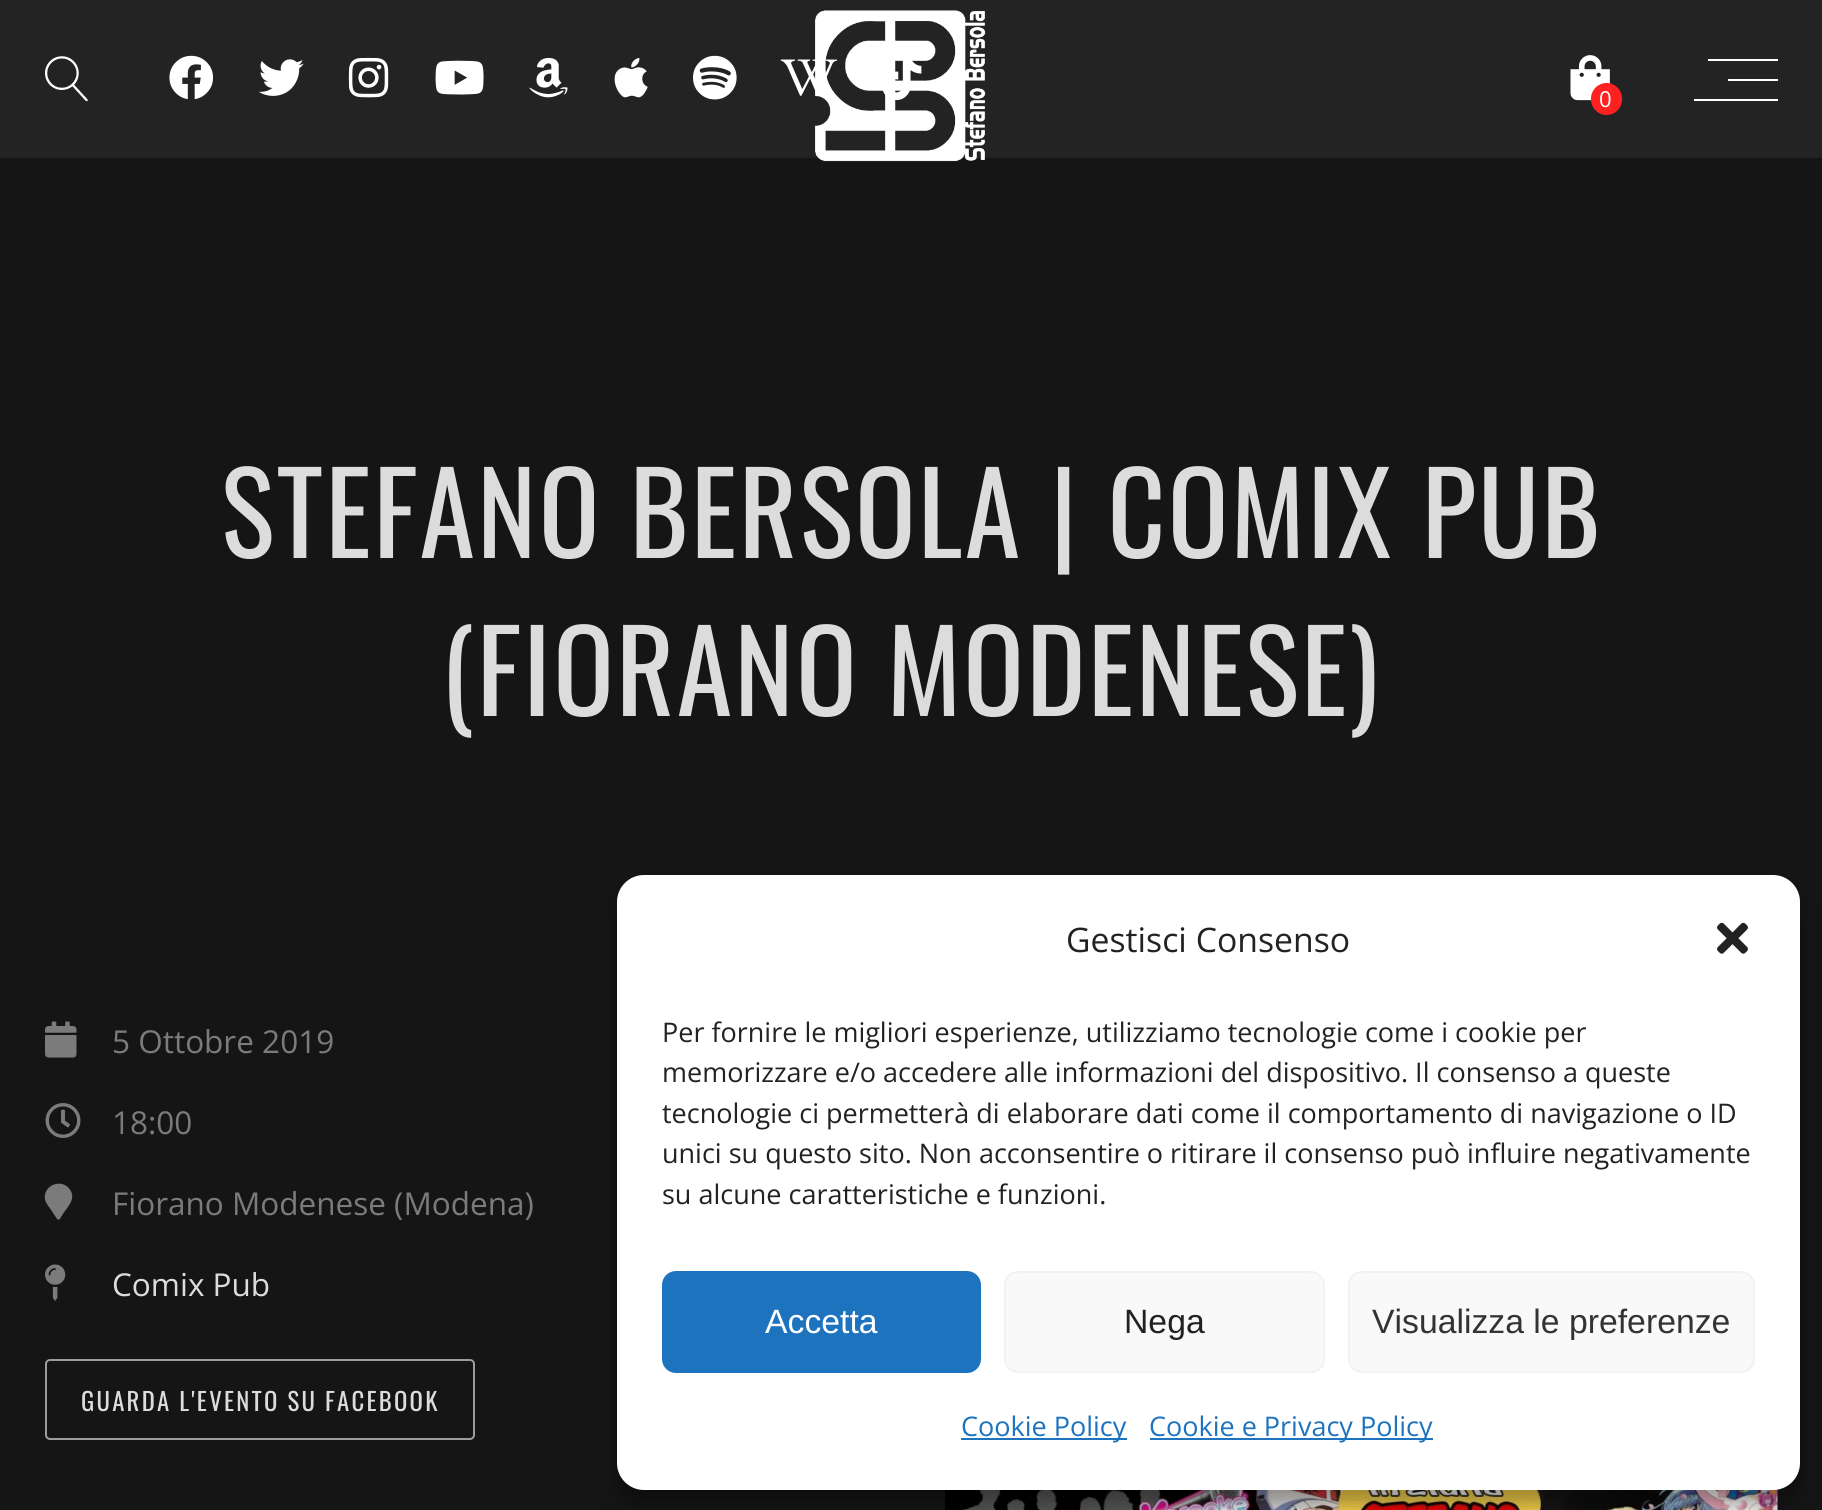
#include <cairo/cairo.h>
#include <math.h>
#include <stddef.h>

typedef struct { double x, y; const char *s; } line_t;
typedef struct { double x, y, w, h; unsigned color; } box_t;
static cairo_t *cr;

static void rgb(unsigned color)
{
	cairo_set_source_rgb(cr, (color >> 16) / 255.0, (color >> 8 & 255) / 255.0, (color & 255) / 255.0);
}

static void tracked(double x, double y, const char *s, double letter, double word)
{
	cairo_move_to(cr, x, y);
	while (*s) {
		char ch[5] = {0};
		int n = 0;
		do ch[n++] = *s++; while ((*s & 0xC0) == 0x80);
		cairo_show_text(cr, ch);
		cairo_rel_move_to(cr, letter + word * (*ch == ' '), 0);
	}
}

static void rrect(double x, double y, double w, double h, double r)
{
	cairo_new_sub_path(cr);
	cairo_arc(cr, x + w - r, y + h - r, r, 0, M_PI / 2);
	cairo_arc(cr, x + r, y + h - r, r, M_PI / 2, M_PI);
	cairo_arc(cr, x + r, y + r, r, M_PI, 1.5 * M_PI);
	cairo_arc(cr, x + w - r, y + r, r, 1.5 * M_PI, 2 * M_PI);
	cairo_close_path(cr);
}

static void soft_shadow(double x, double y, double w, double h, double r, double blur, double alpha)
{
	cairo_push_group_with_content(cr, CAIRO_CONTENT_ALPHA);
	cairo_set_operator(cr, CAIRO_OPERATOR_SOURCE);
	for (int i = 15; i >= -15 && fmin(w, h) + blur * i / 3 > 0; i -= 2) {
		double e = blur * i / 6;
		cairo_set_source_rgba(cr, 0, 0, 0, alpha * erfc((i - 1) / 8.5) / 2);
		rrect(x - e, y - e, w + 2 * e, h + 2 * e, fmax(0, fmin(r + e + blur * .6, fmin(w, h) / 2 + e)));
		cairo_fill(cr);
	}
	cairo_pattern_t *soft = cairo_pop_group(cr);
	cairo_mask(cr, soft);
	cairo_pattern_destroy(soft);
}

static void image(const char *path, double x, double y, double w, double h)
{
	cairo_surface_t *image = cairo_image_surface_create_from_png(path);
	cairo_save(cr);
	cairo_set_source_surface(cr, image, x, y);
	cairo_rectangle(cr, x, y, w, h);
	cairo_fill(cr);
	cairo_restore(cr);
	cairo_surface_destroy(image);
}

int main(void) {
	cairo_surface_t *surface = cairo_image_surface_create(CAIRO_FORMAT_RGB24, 1822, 1510);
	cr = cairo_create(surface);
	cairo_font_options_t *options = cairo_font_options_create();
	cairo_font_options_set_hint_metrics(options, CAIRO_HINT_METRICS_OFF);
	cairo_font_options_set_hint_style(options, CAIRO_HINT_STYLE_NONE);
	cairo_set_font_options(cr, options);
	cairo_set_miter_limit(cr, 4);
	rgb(0x151515);
	cairo_paint(cr);
	rgb(0x232323);
	cairo_rectangle(cr, 0, 0, 1822, 158);
	cairo_fill(cr);
	image("img/1.png", 815, 10, 171, 152);
	image("img/2.png", 45, 56, 43, 46);
	image("img/3.png", 169, 55, 45, 45);
	image("img/4.png", 259, 59, 45, 37);
	image("img/5.png", 348, 57, 41, 41);
	image("img/6.png", 435, 60, 49, 35);
	image("img/7.png", 529, 57, 39, 41);
	image("img/8.png", 614, 58, 34, 40);
	image("img/9.png", 693, 55, 44, 45);
	image("img/10.png", 780, 59, 58, 37);
	image("img/11.png", 882, 60, 40, 41);
	image("img/12.png", 1570, 55, 40, 46);
	rgb(0xff2121);
	rrect(1591, 83, 31, 32, 15.5);
	cairo_fill(cr);
	{
		static const box_t items[] = {
			{1708, 59, 70, 2, 0xffffff},
			{1728, 79, 50, 2, 0xffffff},
			{1694, 99, 84, 2, 0xffffff},
		};
		for (size_t i = 0; i < sizeof items / sizeof *items; i++) {
			rgb(items[i].color);
			cairo_rectangle(cr, items[i].x, items[i].y, items[i].w, items[i].h);
			cairo_fill(cr);
		}
	}
	image("img/13.png", 45, 1021, 32, 37);
	image("img/14.png", 45, 1103, 36, 35);
	rgb(0x7b7b7b);
	cairo_new_path(cr);
	cairo_move_to(cr, 57, 1219);
	cairo_line_to(cr, 51.5, 1210.5);
	cairo_curve_to(cr, 49, 1207, 46, 1203.5, 45, 1199.5);
	cairo_curve_to(cr, 42.5, 1185.5, 61.5, 1177.5, 70, 1189.5);
	cairo_curve_to(cr, 76, 1198.5, 68.5, 1206, 63.5, 1213);
	cairo_line_to(cr, 59.5, 1219.5);
	cairo_curve_to(cr, 58.5, 1219.5, 57.5, 1219.5, 57, 1219);
	cairo_close_path(cr);
	cairo_fill(cr);
	image("img/15.png", 45, 1264, 21, 37);
	rrect(46, 1360, 428, 79, 4);
	rgb(0x9c9c9c);
	cairo_stroke(cr);
	image("img/16.png", 945, 1489, 833, 21);
	rgb(0x000000);
	soft_shadow(617, 889, 1183, 614, 27, 7, 0.23);
	soft_shadow(617, 898, 1183, 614, 27, 22.5, 0.19);
	rgb(0xffffff);
	rrect(617, 875, 1183, 615, 27);
	cairo_fill(cr);
	image("img/17.png", 1717, 922, 31, 32);
	rgb(0x1e73be);
	rrect(663, 1272, 317, 100, 13);
	cairo_fill_preserve(cr);
	cairo_stroke(cr);
	rgb(0xf9f9f9);
	rrect(1005, 1272, 319, 100, 13);
	cairo_fill_preserve(cr);
	rgb(0xf2f2f2);
	cairo_stroke(cr);
	rgb(0xf9f9f9);
	rrect(1349, 1272, 405, 100, 13);
	cairo_fill_preserve(cr);
	rgb(0xf2f2f2);
	cairo_stroke(cr);
	rgb(0x1e73be);
	cairo_rectangle(cr, 961, 1438, 166, 2);
	cairo_fill(cr);
	cairo_rectangle(cr, 1150, 1438, 283, 2);
	cairo_fill(cr);
	cairo_select_font_face(cr, "Open Sans", CAIRO_FONT_SLANT_NORMAL, CAIRO_FONT_WEIGHT_NORMAL);
	cairo_set_font_size(cr, 22);
	rgb(0xffffff);
	cairo_move_to(cr, 1599, 107);
	cairo_show_text(cr, "0");
	cairo_select_font_face(cr, "Oswald", CAIRO_FONT_SLANT_NORMAL, CAIRO_FONT_WEIGHT_NORMAL);
	cairo_set_font_size(cr, 112.5);
	rgb(0xdcdcdc);
	tracked(221, 558, "STEFANO BERSOLA | COMIX PUB", 2.25, 0);
	tracked(441, 716, "(FIORANO MODENESE)", 2.25, 0);
	cairo_select_font_face(cr, "Open Sans", CAIRO_FONT_SLANT_NORMAL, CAIRO_FONT_WEIGHT_NORMAL);
	cairo_set_font_size(cr, 31.5);
	rgb(0x7b7b7b);
	{
		static const line_t items[] = {
			{112, 1053, "5 Ottobre 2019"},
			{112, 1134, "18:00"},
			{112, 1215, "Fiorano Modenese (Modena)"},
		};
		for (size_t i = 0; i < sizeof items / sizeof *items; i++) {
			cairo_move_to(cr, items[i].x, items[i].y);
			cairo_show_text(cr, items[i].s);
		}
	}
	rgb(0xdcdcdc);
	cairo_move_to(cr, 112, 1296);
	cairo_show_text(cr, "Comix Pub");
	cairo_select_font_face(cr, "Oswald", CAIRO_FONT_SLANT_NORMAL, CAIRO_FONT_WEIGHT_NORMAL);
	cairo_set_font_size(cr, 24.75);
	tracked(81, 1411, "GUARDA L'EVENTO SU FACEBOOK", 2.25, 0);
	cairo_select_font_face(cr, "Open Sans", CAIRO_FONT_SLANT_NORMAL, CAIRO_FONT_WEIGHT_NORMAL);
	cairo_set_font_size(cr, 33.75);
	rgb(0x222222);
	cairo_move_to(cr, 1066, 952);
	cairo_show_text(cr, "Gestisci Consenso");
	cairo_set_font_size(cr, 27);
	{
		static const line_t items[] = {
			{662, 1042, "Per fornire le migliori esperienze, utilizziamo tecnologie come i cookie per"},
			{662, 1082, "memorizzare e/o accedere alle informazioni del dispositivo. Il consenso a queste"},
			{662, 1123, "tecnologie ci permetterà di elaborare dati come il comportamento di navigazione o ID"},
			{662, 1163, "unici su questo sito. Non acconsentire o ritirare il consenso può influire negativamente"},
			{662, 1204, "su alcune caratteristiche e funzioni."},
		};
		for (size_t i = 0; i < sizeof items / sizeof *items; i++) {
			cairo_move_to(cr, items[i].x, items[i].y);
			cairo_show_text(cr, items[i].s);
		}
	}
	cairo_select_font_face(cr, "Liberation Sans", CAIRO_FONT_SLANT_NORMAL, CAIRO_FONT_WEIGHT_NORMAL);
	cairo_set_font_size(cr, 33.75);
	rgb(0xffffff);
	cairo_move_to(cr, 765, 1333);
	cairo_show_text(cr, "Accetta");
	rgb(0x222222);
	cairo_move_to(cr, 1124, 1333);
	cairo_show_text(cr, "Nega");
	rgb(0x333333);
	cairo_move_to(cr, 1372, 1333);
	cairo_show_text(cr, "Visualizza le preferenze");
	cairo_select_font_face(cr, "Open Sans", CAIRO_FONT_SLANT_NORMAL, CAIRO_FONT_WEIGHT_NORMAL);
	cairo_set_font_size(cr, 27);
	rgb(0x1e73be);
	cairo_move_to(cr, 961, 1436);
	cairo_show_text(cr, "Cookie Policy");
	cairo_move_to(cr, 1149, 1436);
	cairo_show_text(cr, "Cookie e Privacy Policy");
	cairo_surface_write_to_png(surface, "page.png");
	cairo_font_options_destroy(options);
	cairo_destroy(cr);
	cairo_surface_destroy(surface);
	return 0;
}
